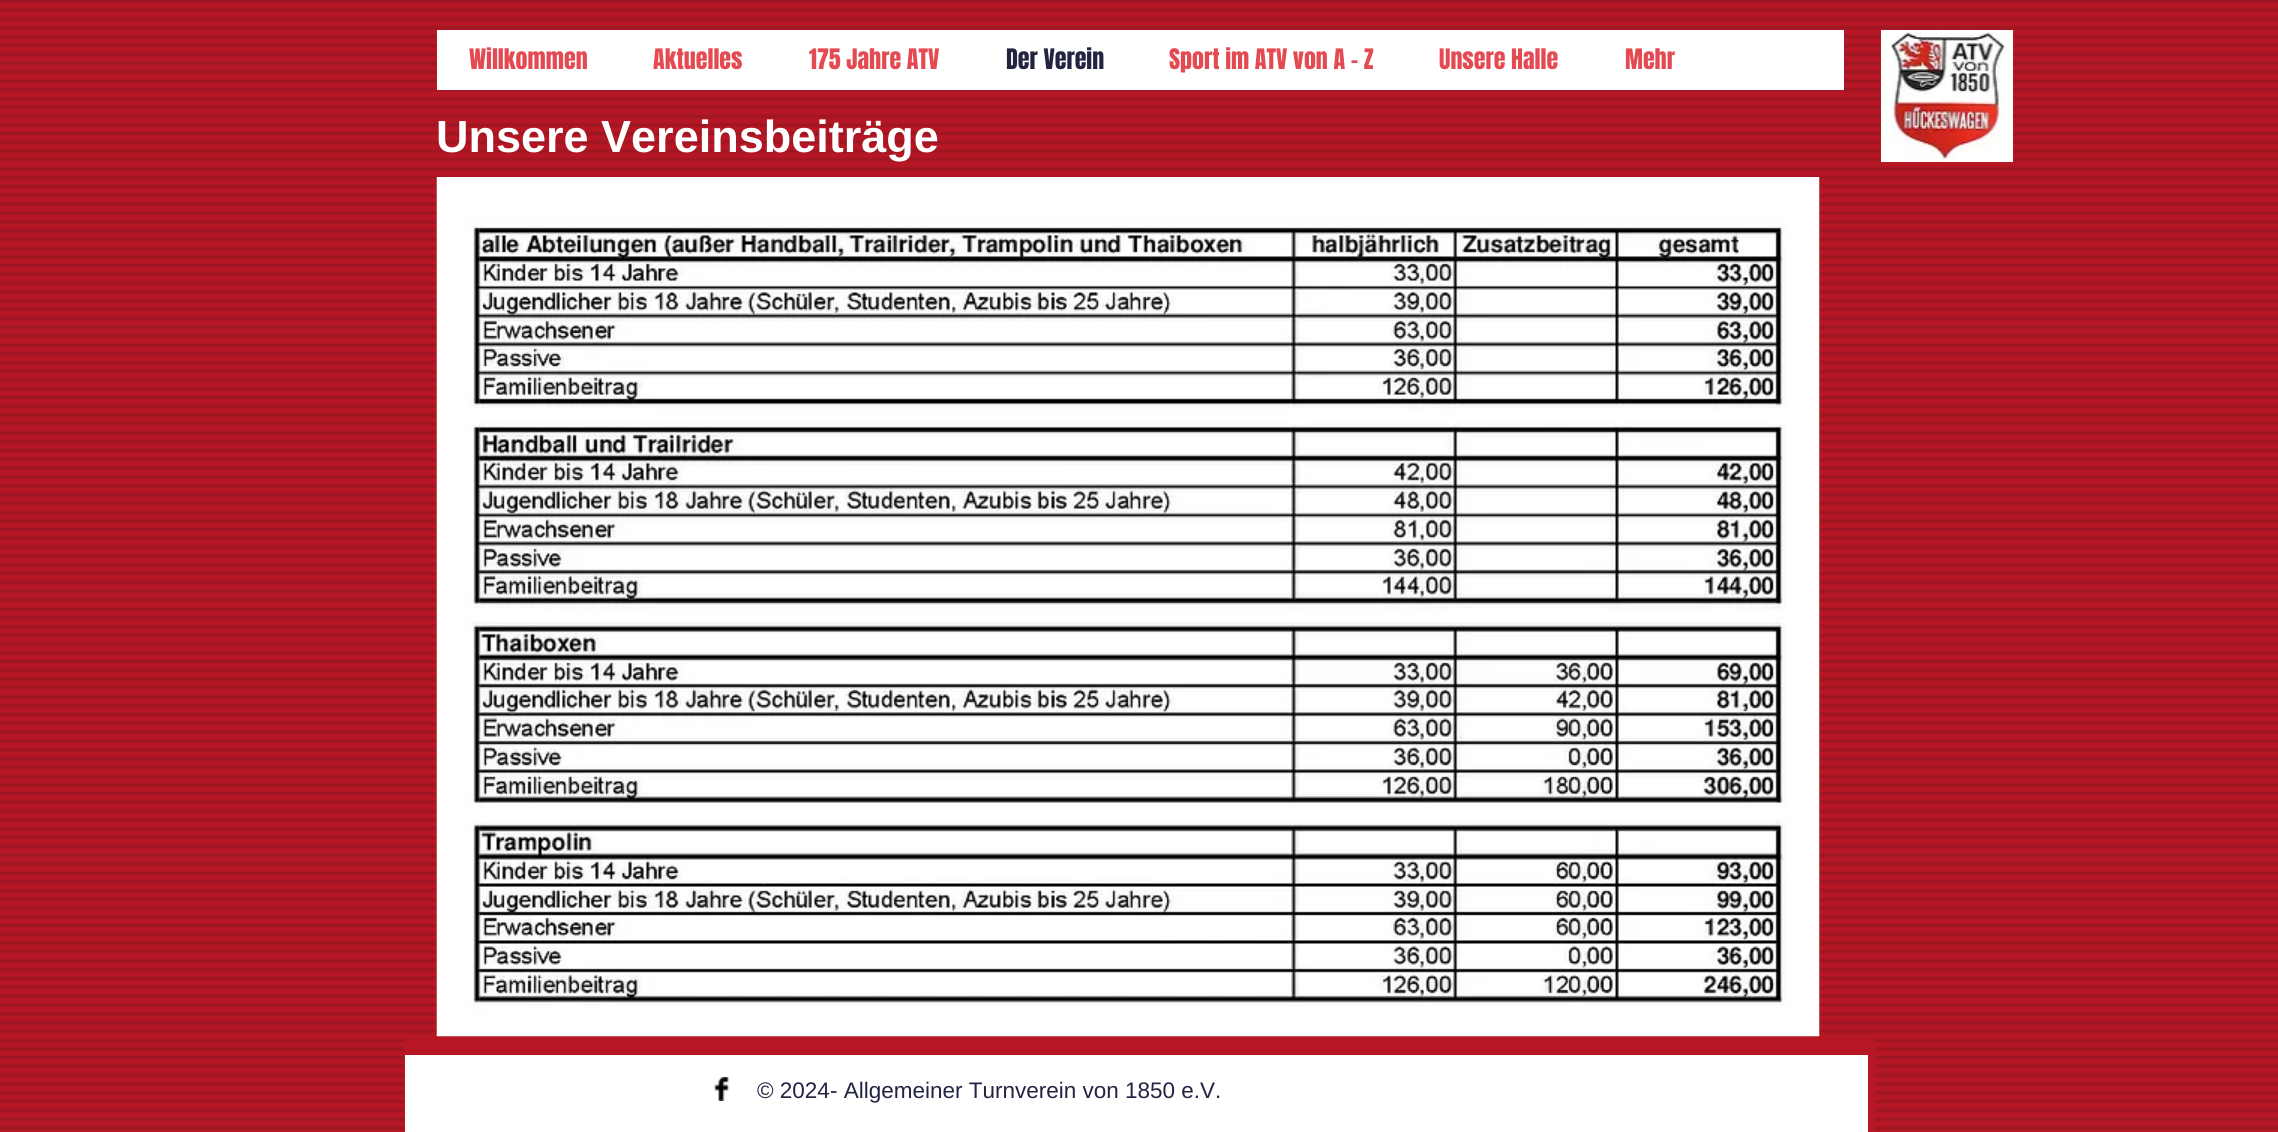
#include <cairo/cairo.h>
#include <math.h>
#include <stddef.h>

typedef struct { double x, y; const char *s; } line_t;
static cairo_t *cr;

static void rgb(unsigned color)
{
	cairo_set_source_rgb(cr, (color >> 16) / 255.0, (color >> 8 & 255) / 255.0, (color & 255) / 255.0);
}

static void image(const char *path, double x, double y, double w, double h)
{
	cairo_surface_t *image = cairo_image_surface_create_from_png(path);
	cairo_save(cr);
	cairo_set_source_surface(cr, image, x, y);
	cairo_rectangle(cr, x, y, w, h);
	cairo_fill(cr);
	cairo_restore(cr);
	cairo_surface_destroy(image);
}

int main(void) {
	cairo_surface_t *surface = cairo_image_surface_create(CAIRO_FORMAT_RGB24, 2278, 1132);
	cr = cairo_create(surface);
	cairo_font_options_t *options = cairo_font_options_create();
	cairo_font_options_set_hint_metrics(options, CAIRO_HINT_METRICS_OFF);
	cairo_font_options_set_hint_style(options, CAIRO_HINT_STYLE_NONE);
	cairo_set_font_options(cr, options);
	cairo_set_miter_limit(cr, 4);
	rgb(0xb71724);
	cairo_paint(cr);
	image("img/1.png", 0, 0, 2278, 1130);
	rgb(0xffffff);
	cairo_rectangle(cr, 437, 30, 1407, 60);
	cairo_fill(cr);
	image("img/2.png", 1881, 30, 132, 132);
	image("img/3.png", 436, 177, 1384, 860);
	rgb(0xb71724);
	cairo_rectangle(cr, 405, 1038, 1470, 92);
	cairo_fill(cr);
	rgb(0xffffff);
	cairo_rectangle(cr, 405, 1055, 1463, 77);
	cairo_fill(cr);
	image("img/4.png", 713, 1077, 17, 24);
	cairo_select_font_face(cr, "Anton", CAIRO_FONT_SLANT_NORMAL, CAIRO_FONT_WEIGHT_NORMAL);
	cairo_set_font_size(cr, 24);
	rgb(0xe34a52);
	{
		static const line_t items[] = {
			{469, 69, "Willkommen"},
			{653, 69, "Aktuelles"},
			{809, 69, "175 Jahre ATV"},
		};
		for (size_t i = 0; i < sizeof items / sizeof *items; i++) {
			cairo_move_to(cr, items[i].x, items[i].y);
			cairo_show_text(cr, items[i].s);
		}
	}
	rgb(0x232442);
	cairo_move_to(cr, 1006, 69);
	cairo_show_text(cr, "Der Verein");
	rgb(0xe34a52);
	{
		static const line_t items[] = {
			{1169, 69, "Sport im ATV von A - Z"},
			{1439, 69, "Unsere Halle"},
			{1625, 69, "Mehr"},
		};
		for (size_t i = 0; i < sizeof items / sizeof *items; i++) {
			cairo_move_to(cr, items[i].x, items[i].y);
			cairo_show_text(cr, items[i].s);
		}
	}
	cairo_select_font_face(cr, "Liberation Sans", CAIRO_FONT_SLANT_NORMAL, CAIRO_FONT_WEIGHT_BOLD);
	cairo_set_font_size(cr, 45);
	rgb(0xffffff);
	cairo_move_to(cr, 436, 152);
	cairo_show_text(cr, "Unsere Vereinsbeiträge");
	cairo_select_font_face(cr, "Liberation Sans", CAIRO_FONT_SLANT_NORMAL, CAIRO_FONT_WEIGHT_NORMAL);
	cairo_set_font_size(cr, 22.5);
	rgb(0x232442);
	cairo_move_to(cr, 757, 1098);
	cairo_show_text(cr, "© 2024- Allgemeiner Turnverein von 1850 e.V.");
	cairo_surface_write_to_png(surface, "page.png");
	cairo_font_options_destroy(options);
	cairo_destroy(cr);
	cairo_surface_destroy(surface);
	return 0;
}
